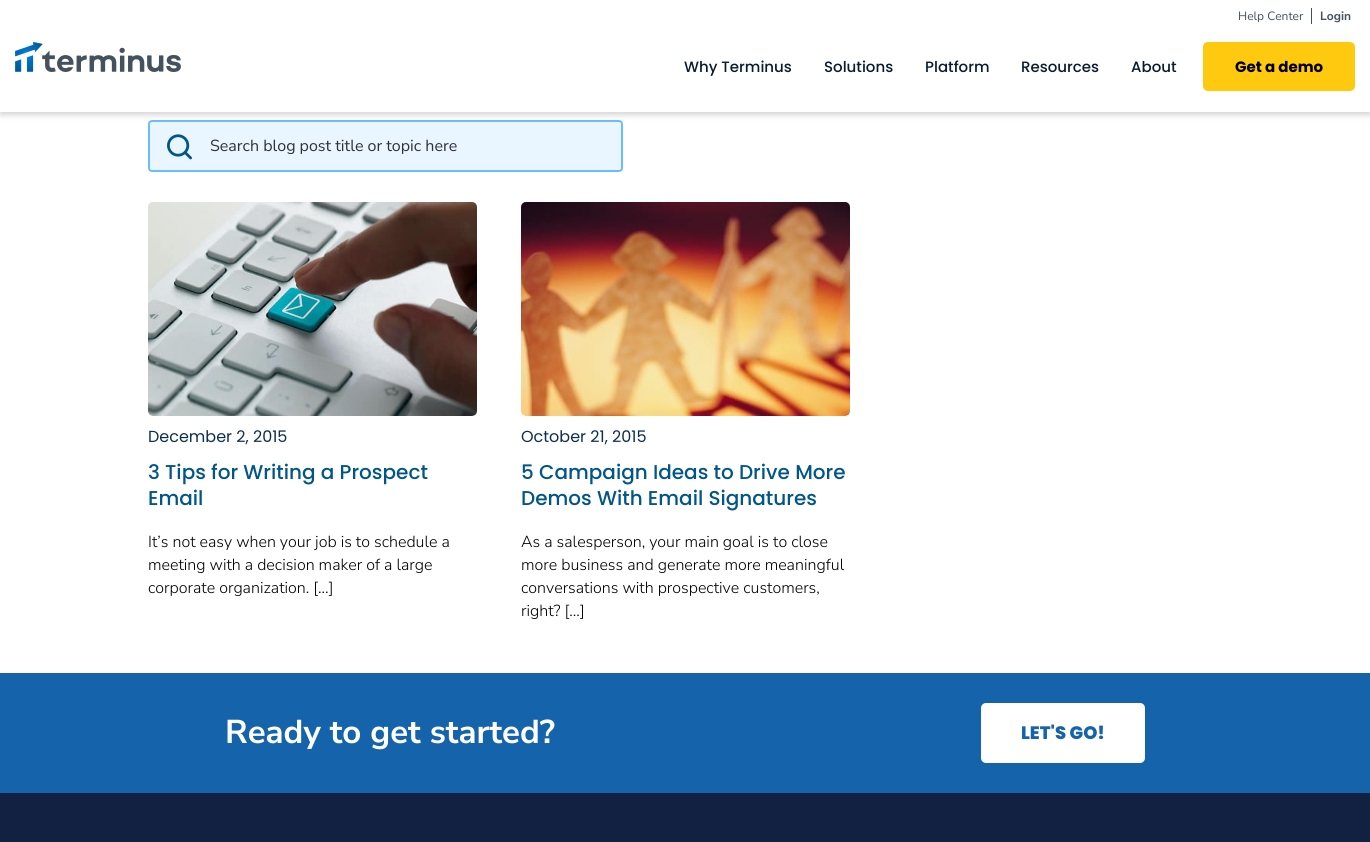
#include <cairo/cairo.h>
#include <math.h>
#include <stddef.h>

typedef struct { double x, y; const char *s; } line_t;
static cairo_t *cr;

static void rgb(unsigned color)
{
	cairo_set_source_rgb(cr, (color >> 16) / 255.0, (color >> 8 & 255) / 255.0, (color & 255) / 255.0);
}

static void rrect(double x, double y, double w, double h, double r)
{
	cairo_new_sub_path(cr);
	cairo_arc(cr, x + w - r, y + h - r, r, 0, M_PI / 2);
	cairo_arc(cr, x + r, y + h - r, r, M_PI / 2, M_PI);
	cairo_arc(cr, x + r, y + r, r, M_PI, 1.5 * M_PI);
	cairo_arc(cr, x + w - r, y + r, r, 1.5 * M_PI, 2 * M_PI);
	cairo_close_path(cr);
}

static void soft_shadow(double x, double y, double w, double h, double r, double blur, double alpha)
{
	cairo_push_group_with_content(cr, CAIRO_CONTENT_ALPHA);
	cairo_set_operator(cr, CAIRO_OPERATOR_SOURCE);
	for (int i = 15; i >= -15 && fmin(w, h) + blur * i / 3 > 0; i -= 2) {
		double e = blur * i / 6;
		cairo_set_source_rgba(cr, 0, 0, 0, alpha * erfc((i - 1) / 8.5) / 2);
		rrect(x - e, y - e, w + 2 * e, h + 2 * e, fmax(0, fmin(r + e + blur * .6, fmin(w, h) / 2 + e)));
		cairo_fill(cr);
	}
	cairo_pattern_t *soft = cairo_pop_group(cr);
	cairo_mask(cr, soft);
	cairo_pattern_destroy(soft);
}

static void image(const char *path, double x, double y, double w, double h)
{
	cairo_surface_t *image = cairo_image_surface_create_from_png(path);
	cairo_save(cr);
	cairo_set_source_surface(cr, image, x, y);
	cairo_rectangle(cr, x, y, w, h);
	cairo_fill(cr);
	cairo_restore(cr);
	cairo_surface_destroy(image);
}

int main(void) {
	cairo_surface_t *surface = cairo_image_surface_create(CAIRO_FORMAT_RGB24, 1370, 842);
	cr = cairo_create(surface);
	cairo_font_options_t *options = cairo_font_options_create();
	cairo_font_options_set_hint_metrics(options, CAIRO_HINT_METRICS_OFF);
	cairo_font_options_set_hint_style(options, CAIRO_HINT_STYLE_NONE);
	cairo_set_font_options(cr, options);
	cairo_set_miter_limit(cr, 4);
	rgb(0xffffff);
	cairo_paint(cr);
	rgb(0xe9f5ff);
	rrect(149, 121, 473, 50, 3);
	cairo_fill_preserve(cr);
	rgb(0x6abdfd);
	cairo_stroke(cr);
	rgb(0x000000);
	soft_shadow(0, 3, 1370, 112, 0, 3, 0.17);
	rgb(0xffffff);
	cairo_rectangle(cr, 0, 0, 1370, 112);
	cairo_fill(cr);
	rgb(0x44515c);
	cairo_rectangle(cr, 1311, 8, 1, 16);
	cairo_fill(cr);
	image("img/1.png", 15, 42, 166, 30);
	rgb(0xfec90f);
	rrect(1203, 42, 152, 49, 5);
	cairo_fill(cr);
	image("img/2.png", 167, 134, 25, 26);
	image("img/3.png", 148, 202, 329, 214);
	image("img/4.png", 521, 202, 329, 214);
	rgb(0x1564ab);
	cairo_rectangle(cr, 0, 673, 1370, 120);
	cairo_fill(cr);
	rgb(0xffffff);
	rrect(981, 703, 164, 60, 5);
	cairo_fill(cr);
	rgb(0x122141);
	cairo_rectangle(cr, 0, 793, 1370, 49);
	cairo_fill(cr);
	cairo_select_font_face(cr, "Nunito Sans", CAIRO_FONT_SLANT_NORMAL, CAIRO_FONT_WEIGHT_NORMAL);
	cairo_set_font_size(cr, 12);
	rgb(0x44515c);
	cairo_move_to(cr, 1238, 20);
	cairo_show_text(cr, "Help Center");
	cairo_select_font_face(cr, "Nunito Sans", CAIRO_FONT_SLANT_NORMAL, CAIRO_FONT_WEIGHT_BOLD);
	cairo_move_to(cr, 1320, 20);
	cairo_show_text(cr, "Login");
	cairo_select_font_face(cr, "Poppins Medium", CAIRO_FONT_SLANT_NORMAL, CAIRO_FONT_WEIGHT_NORMAL);
	cairo_set_font_size(cr, 15);
	rgb(0x091b31);
	{
		static const line_t items[] = {
			{684, 72, "Why Terminus"},
			{824, 72, "Solutions"},
			{925, 72, "Platform"},
			{1021, 72, "Resources"},
			{1131, 72, "About"},
		};
		for (size_t i = 0; i < sizeof items / sizeof *items; i++) {
			cairo_move_to(cr, items[i].x, items[i].y);
			cairo_show_text(cr, items[i].s);
		}
	}
	cairo_select_font_face(cr, "Poppins", CAIRO_FONT_SLANT_NORMAL, CAIRO_FONT_WEIGHT_BOLD);
	rgb(0x000000);
	cairo_move_to(cr, 1235, 72);
	cairo_show_text(cr, "Get a demo");
	cairo_select_font_face(cr, "Nunito Sans", CAIRO_FONT_SLANT_NORMAL, CAIRO_FONT_WEIGHT_NORMAL);
	cairo_set_font_size(cr, 16);
	rgb(0x2f3133);
	cairo_move_to(cr, 210, 151);
	cairo_show_text(cr, "Search blog post title or topic here");
	cairo_select_font_face(cr, "Poppins", CAIRO_FONT_SLANT_NORMAL, CAIRO_FONT_WEIGHT_NORMAL);
	rgb(0x0f2d52);
	cairo_move_to(cr, 148, 442);
	cairo_show_text(cr, "December 2, 2015");
	cairo_select_font_face(cr, "Poppins Medium", CAIRO_FONT_SLANT_NORMAL, CAIRO_FONT_WEIGHT_NORMAL);
	cairo_set_font_size(cr, 20);
	rgb(0x005589);
	cairo_move_to(cr, 148, 479);
	cairo_show_text(cr, "3 Tips for Writing a Prospect");
	cairo_move_to(cr, 148, 505);
	cairo_show_text(cr, "Email");
	cairo_select_font_face(cr, "Nunito Sans Light", CAIRO_FONT_SLANT_NORMAL, CAIRO_FONT_WEIGHT_NORMAL);
	cairo_set_font_size(cr, 16);
	rgb(0x000000);
	{
		static const line_t items[] = {
			{148, 547, "It’s not easy when your job is to schedule a"},
			{148, 570, "meeting with a decision maker of a large"},
			{148, 593, "corporate organization. […]"},
		};
		for (size_t i = 0; i < sizeof items / sizeof *items; i++) {
			cairo_move_to(cr, items[i].x, items[i].y);
			cairo_show_text(cr, items[i].s);
		}
	}
	cairo_select_font_face(cr, "Poppins", CAIRO_FONT_SLANT_NORMAL, CAIRO_FONT_WEIGHT_NORMAL);
	rgb(0x0f2d52);
	cairo_move_to(cr, 521, 442);
	cairo_show_text(cr, "October 21, 2015");
	cairo_select_font_face(cr, "Poppins Medium", CAIRO_FONT_SLANT_NORMAL, CAIRO_FONT_WEIGHT_NORMAL);
	cairo_set_font_size(cr, 20);
	rgb(0x005589);
	cairo_move_to(cr, 521, 479);
	cairo_show_text(cr, "5 Campaign Ideas to Drive More");
	cairo_move_to(cr, 521, 505);
	cairo_show_text(cr, "Demos With Email Signatures");
	cairo_select_font_face(cr, "Nunito Sans Light", CAIRO_FONT_SLANT_NORMAL, CAIRO_FONT_WEIGHT_NORMAL);
	cairo_set_font_size(cr, 16);
	rgb(0x000000);
	{
		static const line_t items[] = {
			{521, 547, "As a salesperson, your main goal is to close"},
			{521, 570, "more business and generate more meaningful"},
			{521, 593, "conversations with prospective customers,"},
			{521, 616, "right? […]"},
		};
		for (size_t i = 0; i < sizeof items / sizeof *items; i++) {
			cairo_move_to(cr, items[i].x, items[i].y);
			cairo_show_text(cr, items[i].s);
		}
	}
	cairo_select_font_face(cr, "Nunito Sans", CAIRO_FONT_SLANT_NORMAL, CAIRO_FONT_WEIGHT_BOLD);
	cairo_set_font_size(cr, 33);
	rgb(0xffffff);
	cairo_move_to(cr, 225, 743);
	cairo_show_text(cr, "Ready to get started?");
	cairo_select_font_face(cr, "Poppins ExtraBold", CAIRO_FONT_SLANT_NORMAL, CAIRO_FONT_WEIGHT_NORMAL);
	cairo_set_font_size(cr, 18);
	rgb(0x1564ab);
	cairo_move_to(cr, 1021, 739);
	cairo_show_text(cr, "LET'S GO!");
	cairo_surface_write_to_png(surface, "page.png");
	cairo_font_options_destroy(options);
	cairo_destroy(cr);
	cairo_surface_destroy(surface);
	return 0;
}
